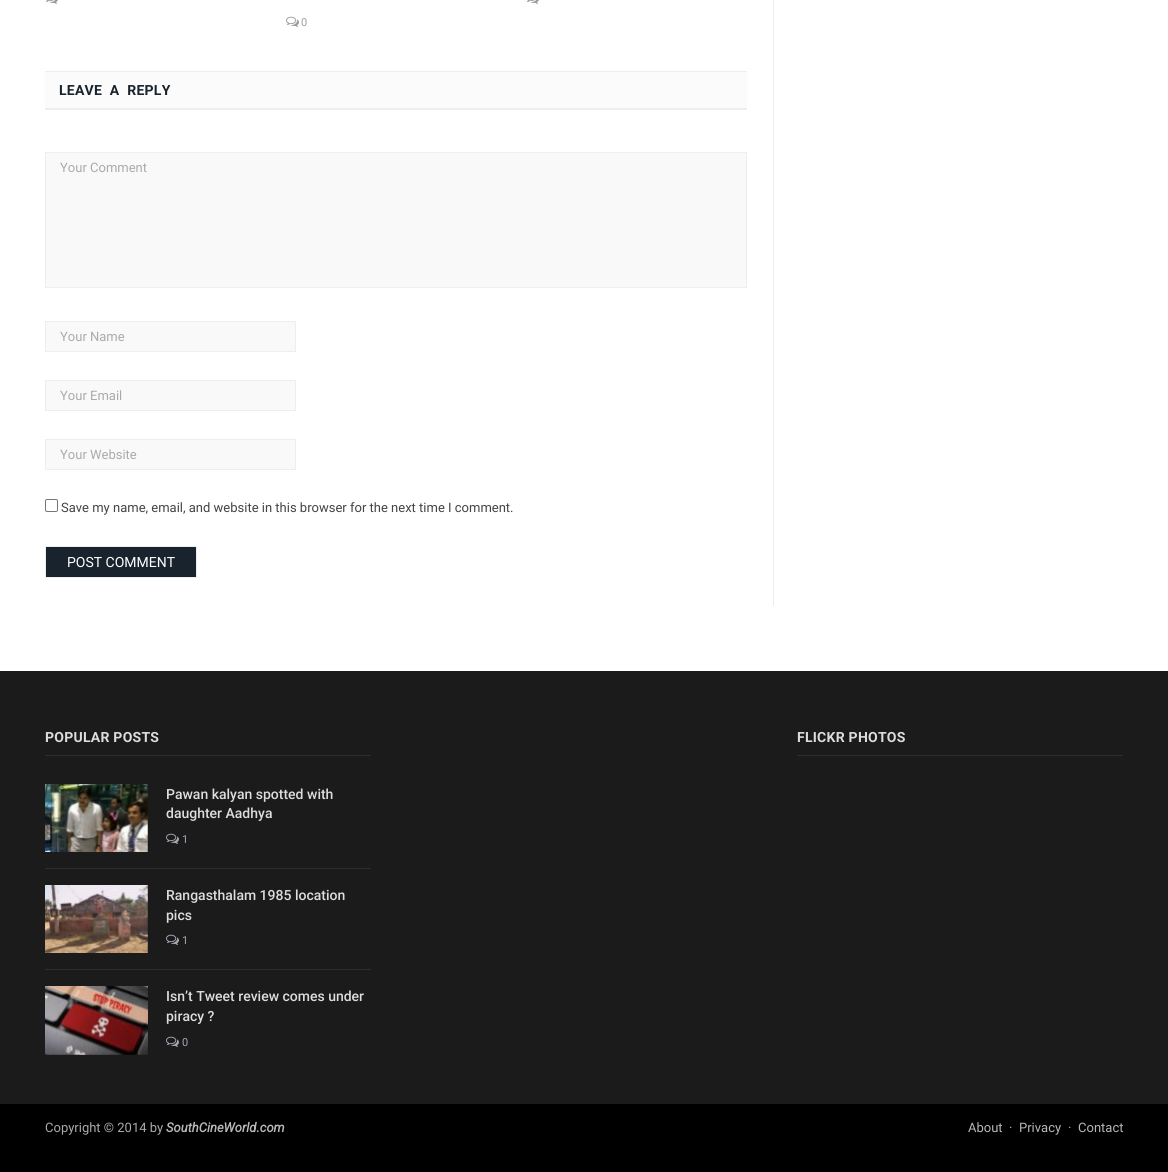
#include <cairo/cairo.h>
#include <math.h>
#include <stddef.h>

typedef struct { double x, y; const char *s; } line_t;
typedef struct { double x, y, w, h; unsigned color; } box_t;
static cairo_t *cr;

static void rgb(unsigned color)
{
	cairo_set_source_rgb(cr, (color >> 16) / 255.0, (color >> 8 & 255) / 255.0, (color & 255) / 255.0);
}

static void tracked(double x, double y, const char *s, double letter, double word)
{
	cairo_move_to(cr, x, y);
	while (*s) {
		char ch[5] = {0};
		int n = 0;
		do ch[n++] = *s++; while ((*s & 0xC0) == 0x80);
		cairo_show_text(cr, ch);
		cairo_rel_move_to(cr, letter + word * (*ch == ' '), 0);
	}
}

static void rrect(double x, double y, double w, double h, double r)
{
	cairo_new_sub_path(cr);
	cairo_arc(cr, x + w - r, y + h - r, r, 0, M_PI / 2);
	cairo_arc(cr, x + r, y + h - r, r, M_PI / 2, M_PI);
	cairo_arc(cr, x + r, y + r, r, M_PI, 1.5 * M_PI);
	cairo_arc(cr, x + w - r, y + r, r, 1.5 * M_PI, 2 * M_PI);
	cairo_close_path(cr);
}

static void image(const char *path, double x, double y, double w, double h)
{
	cairo_surface_t *image = cairo_image_surface_create_from_png(path);
	cairo_save(cr);
	cairo_set_source_surface(cr, image, x, y);
	cairo_rectangle(cr, x, y, w, h);
	cairo_fill(cr);
	cairo_restore(cr);
	cairo_surface_destroy(image);
}

int main(void) {
	cairo_surface_t *surface = cairo_image_surface_create(CAIRO_FORMAT_RGB24, 1168, 1172);
	cr = cairo_create(surface);
	cairo_font_options_t *options = cairo_font_options_create();
	cairo_font_options_set_hint_metrics(options, CAIRO_HINT_METRICS_OFF);
	cairo_font_options_set_hint_style(options, CAIRO_HINT_STYLE_NONE);
	cairo_set_font_options(cr, options);
	cairo_set_miter_limit(cr, 4);
	rgb(0xffffff);
	cairo_paint(cr);
	image("img/1.png", 46, 0, 12, 4);
	image("img/1.png", 527, 0, 12, 4);
	image("img/2.png", 286, 16, 13, 11);
	{
		static const box_t items[] = {
			{45, 72, 702, 36, 0xfbfbfb},
			{45, 71, 702, 1, 0xeeeeee},
			{45, 108, 702, 2, 0xeeeeee},
		};
		for (size_t i = 0; i < sizeof items / sizeof *items; i++) {
			rgb(items[i].color);
			cairo_rectangle(cr, items[i].x, items[i].y, items[i].w, items[i].h);
			cairo_fill(cr);
		}
	}
	rgb(0xf9f9f9);
	cairo_rectangle(cr, 45.5, 152.5, 701, 135);
	cairo_fill_preserve(cr);
	rgb(0xeeeeee);
	cairo_set_line_width(cr, 1);
	cairo_stroke(cr);
	rgb(0xf9f9f9);
	cairo_rectangle(cr, 45.5, 321.5, 250, 30);
	cairo_fill_preserve(cr);
	rgb(0xeeeeee);
	cairo_stroke(cr);
	rgb(0xf9f9f9);
	cairo_rectangle(cr, 45.5, 380.5, 250, 30);
	cairo_fill_preserve(cr);
	rgb(0xeeeeee);
	cairo_stroke(cr);
	rgb(0xf9f9f9);
	cairo_rectangle(cr, 45.5, 439.5, 250, 30);
	cairo_fill_preserve(cr);
	rgb(0xeeeeee);
	cairo_stroke(cr);
	rrect(45.5, 499.5, 12, 12, 1.5);
	rgb(0x767676);
	cairo_stroke(cr);
	rgb(0x19232d);
	cairo_rectangle(cr, 45.5, 546.5, 151, 31);
	cairo_fill_preserve(cr);
	rgb(0xeeeeee);
	cairo_stroke(cr);
	{
		static const box_t items[] = {
			{773, 0, 1, 606, 0xeeeeee},
			{0, 671, 1168, 433, 0x1b1b1b},
			{45, 755, 326, 1, 0x2d2d2d},
			{45, 868, 326, 1, 0x2d2d2d},
		};
		for (size_t i = 0; i < sizeof items / sizeof *items; i++) {
			rgb(items[i].color);
			cairo_rectangle(cr, items[i].x, items[i].y, items[i].w, items[i].h);
			cairo_fill(cr);
		}
	}
	image("img/3.png", 45, 784, 103, 68);
	image("img/4.png", 166, 833, 13, 11);
	cairo_rectangle(cr, 45, 969, 326, 1);
	cairo_fill(cr);
	image("img/5.png", 45, 885, 103, 68);
	image("img/4.png", 166, 934, 13, 11);
	image("img/6.png", 45, 986, 103, 69);
	image("img/4.png", 166, 1036, 13, 11);
	cairo_rectangle(cr, 797, 755, 326, 1);
	cairo_fill(cr);
	rgb(0x000000);
	cairo_rectangle(cr, 0, 1104, 1168, 68);
	cairo_fill(cr);
	cairo_select_font_face(cr, "Roboto", CAIRO_FONT_SLANT_NORMAL, CAIRO_FONT_WEIGHT_NORMAL);
	cairo_set_font_size(cr, 11);
	rgb(0x9c9c9c);
	cairo_move_to(cr, 301, 26);
	cairo_show_text(cr, "0");
	cairo_select_font_face(cr, "Roboto", CAIRO_FONT_SLANT_NORMAL, CAIRO_FONT_WEIGHT_BOLD);
	cairo_set_font_size(cr, 14);
	rgb(0x19232d);
	tracked(59, 95, "LEAVE A REPLY", 0.25, 4);
	cairo_select_font_face(cr, "Roboto", CAIRO_FONT_SLANT_NORMAL, CAIRO_FONT_WEIGHT_NORMAL);
	cairo_set_font_size(cr, 13);
	rgb(0xaaaaaa);
	{
		static const line_t items[] = {
			{60, 172, "Your Comment"},
			{60, 341, "Your Name"},
			{60, 400, "Your Email"},
			{60, 459, "Your Website"},
		};
		for (size_t i = 0; i < sizeof items / sizeof *items; i++) {
			cairo_move_to(cr, items[i].x, items[i].y);
			cairo_show_text(cr, items[i].s);
		}
	}
	rgb(0x444444);
	cairo_move_to(cr, 61, 512);
	cairo_show_text(cr, "Save my name, email, and website in this browser for the next time I comment.");
	cairo_set_font_size(cr, 14);
	rgb(0xffffff);
	cairo_move_to(cr, 67, 567);
	cairo_show_text(cr, "POST COMMENT");
	cairo_select_font_face(cr, "Roboto", CAIRO_FONT_SLANT_NORMAL, CAIRO_FONT_WEIGHT_BOLD);
	rgb(0xdddddd);
	tracked(45, 742, "POPULAR POSTS", 0.25, 0);
	cairo_select_font_face(cr, "Roboto Medium", CAIRO_FONT_SLANT_NORMAL, CAIRO_FONT_WEIGHT_NORMAL);
	cairo_move_to(cr, 166, 799);
	cairo_show_text(cr, "Pawan kalyan spotted with");
	cairo_move_to(cr, 166, 818);
	cairo_show_text(cr, "daughter Aadhya");
	cairo_select_font_face(cr, "Roboto", CAIRO_FONT_SLANT_NORMAL, CAIRO_FONT_WEIGHT_NORMAL);
	cairo_set_font_size(cr, 11);
	rgb(0xa3a8b1);
	cairo_move_to(cr, 182, 843);
	cairo_show_text(cr, "1");
	cairo_select_font_face(cr, "Roboto Medium", CAIRO_FONT_SLANT_NORMAL, CAIRO_FONT_WEIGHT_NORMAL);
	cairo_set_font_size(cr, 14);
	rgb(0xdddddd);
	cairo_move_to(cr, 166, 900);
	cairo_show_text(cr, "Rangasthalam 1985 location");
	cairo_move_to(cr, 166, 920);
	cairo_show_text(cr, "pics");
	cairo_select_font_face(cr, "Roboto", CAIRO_FONT_SLANT_NORMAL, CAIRO_FONT_WEIGHT_NORMAL);
	cairo_set_font_size(cr, 11);
	rgb(0xa3a8b1);
	cairo_move_to(cr, 182, 944);
	cairo_show_text(cr, "1");
	cairo_select_font_face(cr, "Roboto Medium", CAIRO_FONT_SLANT_NORMAL, CAIRO_FONT_WEIGHT_NORMAL);
	cairo_set_font_size(cr, 14);
	rgb(0xdddddd);
	cairo_move_to(cr, 166, 1001);
	cairo_show_text(cr, "Isn’t Tweet review comes under");
	cairo_move_to(cr, 166, 1021);
	cairo_show_text(cr, "piracy ?");
	cairo_select_font_face(cr, "Roboto", CAIRO_FONT_SLANT_NORMAL, CAIRO_FONT_WEIGHT_NORMAL);
	cairo_set_font_size(cr, 11);
	rgb(0xa3a8b1);
	cairo_move_to(cr, 182, 1046);
	cairo_show_text(cr, "0");
	cairo_select_font_face(cr, "Roboto", CAIRO_FONT_SLANT_NORMAL, CAIRO_FONT_WEIGHT_BOLD);
	cairo_set_font_size(cr, 14);
	rgb(0xdddddd);
	tracked(797, 742, "FLICKR PHOTOS", 0.25, 0);
	cairo_select_font_face(cr, "Roboto", CAIRO_FONT_SLANT_NORMAL, CAIRO_FONT_WEIGHT_NORMAL);
	cairo_set_font_size(cr, 13);
	rgb(0xaaaaaa);
	cairo_move_to(cr, 45, 1132);
	cairo_show_text(cr, "Copyright © 2014 by");
	cairo_select_font_face(cr, "Roboto", CAIRO_FONT_SLANT_ITALIC, CAIRO_FONT_WEIGHT_BOLD);
	rgb(0xb6b7b9);
	cairo_move_to(cr, 166, 1132);
	cairo_show_text(cr, "SouthCineWorld.com");
	cairo_select_font_face(cr, "Roboto", CAIRO_FONT_SLANT_NORMAL, CAIRO_FONT_WEIGHT_NORMAL);
	cairo_move_to(cr, 968, 1132);
	cairo_show_text(cr, "About");
	rgb(0xaaaaaa);
	cairo_move_to(cr, 1009, 1132);
	cairo_show_text(cr, "·");
	rgb(0xb6b7b9);
	cairo_move_to(cr, 1019, 1132);
	cairo_show_text(cr, "Privacy");
	rgb(0xaaaaaa);
	cairo_move_to(cr, 1068, 1132);
	cairo_show_text(cr, "·");
	rgb(0xb6b7b9);
	cairo_move_to(cr, 1078, 1132);
	cairo_show_text(cr, "Contact");
	cairo_surface_write_to_png(surface, "page.png");
	cairo_font_options_destroy(options);
	cairo_destroy(cr);
	cairo_surface_destroy(surface);
	return 0;
}
